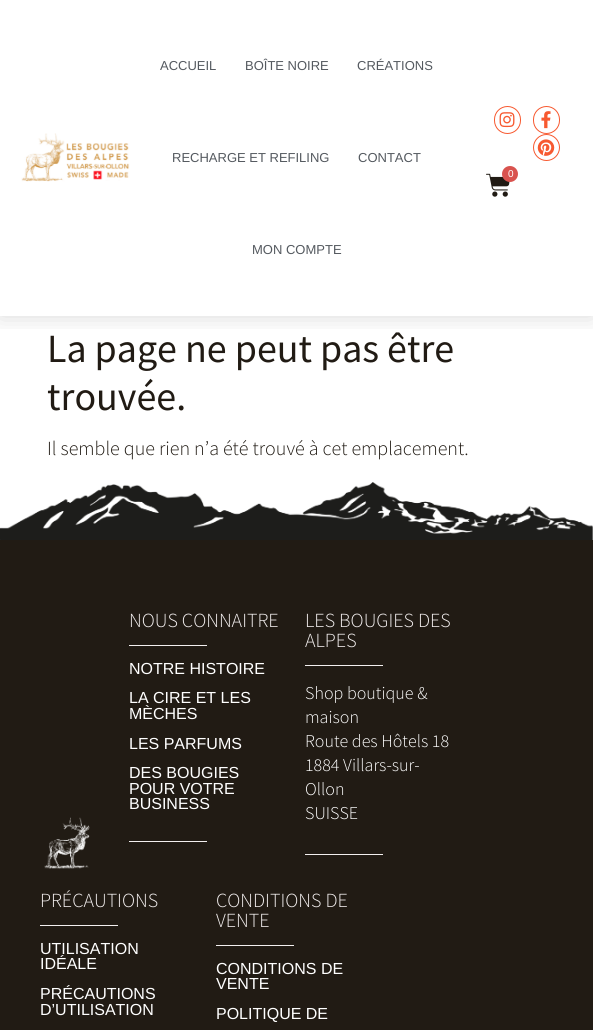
#include <cairo/cairo.h>
#include <math.h>
#include <stddef.h>

typedef struct { double x, y; const char *s; } line_t;
typedef struct { double x, y, w, h; unsigned color; } box_t;
static cairo_t *cr;

static void rgb(unsigned color)
{
	cairo_set_source_rgb(cr, (color >> 16) / 255.0, (color >> 8 & 255) / 255.0, (color & 255) / 255.0);
}

static void rrect(double x, double y, double w, double h, double r)
{
	cairo_new_sub_path(cr);
	cairo_arc(cr, x + w - r, y + h - r, r, 0, M_PI / 2);
	cairo_arc(cr, x + r, y + h - r, r, M_PI / 2, M_PI);
	cairo_arc(cr, x + r, y + r, r, M_PI, 1.5 * M_PI);
	cairo_arc(cr, x + w - r, y + r, r, 1.5 * M_PI, 2 * M_PI);
	cairo_close_path(cr);
}

static void soft_shadow(double x, double y, double w, double h, double r, double blur, double alpha)
{
	cairo_push_group_with_content(cr, CAIRO_CONTENT_ALPHA);
	cairo_set_operator(cr, CAIRO_OPERATOR_SOURCE);
	for (int i = 15; i >= -15 && fmin(w, h) + blur * i / 3 > 0; i -= 2) {
		double e = blur * i / 6;
		cairo_set_source_rgba(cr, 0, 0, 0, alpha * erfc((i - 1) / 8.5) / 2);
		rrect(x - e, y - e, w + 2 * e, h + 2 * e, fmax(0, fmin(r + e + blur * .6, fmin(w, h) / 2 + e)));
		cairo_fill(cr);
	}
	cairo_pattern_t *soft = cairo_pop_group(cr);
	cairo_mask(cr, soft);
	cairo_pattern_destroy(soft);
}

static void image(const char *path, double x, double y, double w, double h)
{
	cairo_surface_t *image = cairo_image_surface_create_from_png(path);
	cairo_save(cr);
	cairo_set_source_surface(cr, image, x, y);
	cairo_rectangle(cr, x, y, w, h);
	cairo_fill(cr);
	cairo_restore(cr);
	cairo_surface_destroy(image);
}

int main(void) {
	cairo_surface_t *surface = cairo_image_surface_create(CAIRO_FORMAT_RGB24, 593, 1030);
	cr = cairo_create(surface);
	cairo_font_options_t *options = cairo_font_options_create();
	cairo_font_options_set_hint_metrics(options, CAIRO_HINT_METRICS_OFF);
	cairo_font_options_set_hint_style(options, CAIRO_HINT_STYLE_NONE);
	cairo_set_font_options(cr, options);
	cairo_set_miter_limit(cr, 4);
	rgb(0xffffff);
	cairo_paint(cr);
	cairo_save(cr);
	cairo_rectangle(cr, 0, 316, 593, 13);
	cairo_clip(cr);
	rgb(0x000000);
	soft_shadow(0, 0, 593, 316, 0, 12, 0.15);
	cairo_restore(cr);
	image("img/1.png", 21, 133, 109, 49);
	rrect(494.5, 106.5, 26, 27, 13);
	rgb(0xf75930);
	cairo_set_line_width(cr, 1);
	cairo_stroke(cr);
	image("img/2.png", 499, 112, 16, 16);
	rrect(533.5, 106.5, 26, 27, 13);
	cairo_stroke(cr);
	image("img/3.png", 541, 111, 10, 18);
	cairo_arc(cr, 546.5, 147.5, 13, 0, 2 * M_PI);
	cairo_stroke(cr);
	image("img/4.png", 537, 139, 18, 17);
	image("img/5.png", 486, 173, 24, 24);
	rgb(0xd9534f);
	cairo_arc(cr, 510, 174, 8, 0, 2 * M_PI);
	cairo_fill(cr);
	image("img/6.png", 0, 482, 593, 58);
	{
		static const box_t items[] = {
			{0, 540, 593, 490, 0x211b14},
			{129, 645, 78, 1, 0xf3efef},
			{129, 841, 78, 1, 0xf3efef},
			{305, 665, 78, 1, 0xf3efef},
			{305, 854, 78, 1, 0xf3efef},
		};
		for (size_t i = 0; i < sizeof items / sizeof *items; i++) {
			rgb(items[i].color);
			cairo_rectangle(cr, items[i].x, items[i].y, items[i].w, items[i].h);
			cairo_fill(cr);
		}
	}
	image("img/7.png", 44, 817, 46, 52);
	cairo_rectangle(cr, 40, 925, 78, 1);
	cairo_fill(cr);
	cairo_rectangle(cr, 216, 945, 78, 1);
	cairo_fill(cr);
	cairo_select_font_face(cr, "Liberation Sans", CAIRO_FONT_SLANT_NORMAL, CAIRO_FONT_WEIGHT_NORMAL);
	cairo_set_font_size(cr, 13);
	rgb(0x54595f);
	{
		static const line_t items[] = {
			{160, 70, "ACCUEIL"},
			{245, 70, "BOÎTE NOIRE"},
			{357, 70, "CRÉATIONS"},
			{172, 162, "RECHARGE ET REFILING"},
			{358, 162, "CONTACT"},
			{252, 254, "MON COMPTE"},
		};
		for (size_t i = 0; i < sizeof items / sizeof *items; i++) {
			cairo_move_to(cr, items[i].x, items[i].y);
			cairo_show_text(cr, items[i].s);
		}
	}
	cairo_set_font_size(cr, 10);
	rgb(0xffffff);
	cairo_move_to(cr, 508, 177);
	cairo_show_text(cr, "0");
	cairo_select_font_face(cr, "Source Sans Pro", CAIRO_FONT_SLANT_NORMAL, CAIRO_FONT_WEIGHT_NORMAL);
	cairo_set_font_size(cr, 40);
	rgb(0x211b14);
	cairo_move_to(cr, 47, 362);
	cairo_show_text(cr, "La page ne peut pas être");
	cairo_move_to(cr, 47, 410);
	cairo_show_text(cr, "trouvée.");
	cairo_select_font_face(cr, "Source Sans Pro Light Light", CAIRO_FONT_SLANT_NORMAL, CAIRO_FONT_WEIGHT_NORMAL);
	cairo_set_font_size(cr, 20);
	cairo_move_to(cr, 47, 455);
	cairo_show_text(cr, "Il semble que rien n’a été trouvé à cet emplacement.");
	rgb(0xf3efef);
	cairo_move_to(cr, 129, 627);
	cairo_show_text(cr, "NOUS CONNAITRE");
	cairo_select_font_face(cr, "Liberation Sans", CAIRO_FONT_SLANT_NORMAL, CAIRO_FONT_WEIGHT_NORMAL);
	cairo_set_font_size(cr, 16);
	rgb(0xffffff);
	{
		static const line_t items[] = {
			{129, 674, "NOTRE HISTOIRE"},
			{129, 703, "LA CIRE ET LES"},
			{129, 719, "MÈCHES"},
			{129, 749, "LES PARFUMS"},
			{129, 778, "DES BOUGIES"},
			{129, 794, "POUR VOTRE"},
			{129, 809, "BUSINESS"},
		};
		for (size_t i = 0; i < sizeof items / sizeof *items; i++) {
			cairo_move_to(cr, items[i].x, items[i].y);
			cairo_show_text(cr, items[i].s);
		}
	}
	cairo_select_font_face(cr, "Source Sans Pro Light Light", CAIRO_FONT_SLANT_NORMAL, CAIRO_FONT_WEIGHT_NORMAL);
	cairo_set_font_size(cr, 20);
	rgb(0xf3efef);
	cairo_move_to(cr, 305, 627);
	cairo_show_text(cr, "LES BOUGIES DES");
	cairo_move_to(cr, 305, 647);
	cairo_show_text(cr, "ALPES");
	cairo_set_font_size(cr, 18);
	rgb(0xffffff);
	{
		static const line_t items[] = {
			{305, 699, "Shop boutique &"},
			{305, 723, "maison"},
			{305, 747, "Route des Hôtels 18"},
			{305, 771, "1884 Villars-sur-"},
			{305, 795, "Ollon"},
			{305, 819, "SUISSE"},
		};
		for (size_t i = 0; i < sizeof items / sizeof *items; i++) {
			cairo_move_to(cr, items[i].x, items[i].y);
			cairo_show_text(cr, items[i].s);
		}
	}
	cairo_set_font_size(cr, 20);
	rgb(0xf3efef);
	cairo_move_to(cr, 40, 907);
	cairo_show_text(cr, "PRÉCAUTIONS");
	cairo_select_font_face(cr, "Liberation Sans", CAIRO_FONT_SLANT_NORMAL, CAIRO_FONT_WEIGHT_NORMAL);
	cairo_set_font_size(cr, 16);
	rgb(0xffffff);
	{
		static const line_t items[] = {
			{40, 954, "UTILISATION"},
			{40, 969, "IDÉALE"},
			{40, 999, "PRÉCAUTIONS"},
			{40, 1015, "D’UTILISATION"},
		};
		for (size_t i = 0; i < sizeof items / sizeof *items; i++) {
			cairo_move_to(cr, items[i].x, items[i].y);
			cairo_show_text(cr, items[i].s);
		}
	}
	cairo_select_font_face(cr, "Source Sans Pro Light Light", CAIRO_FONT_SLANT_NORMAL, CAIRO_FONT_WEIGHT_NORMAL);
	cairo_set_font_size(cr, 20);
	rgb(0xf3efef);
	cairo_move_to(cr, 216, 907);
	cairo_show_text(cr, "CONDITIONS DE");
	cairo_move_to(cr, 216, 927);
	cairo_show_text(cr, "VENTE");
	cairo_select_font_face(cr, "Liberation Sans", CAIRO_FONT_SLANT_NORMAL, CAIRO_FONT_WEIGHT_NORMAL);
	cairo_set_font_size(cr, 16);
	rgb(0xffffff);
	{
		static const line_t items[] = {
			{216, 974, "CONDITIONS DE"},
			{216, 989, "VENTE"},
			{216, 1019, "POLITIQUE DE"},
		};
		for (size_t i = 0; i < sizeof items / sizeof *items; i++) {
			cairo_move_to(cr, items[i].x, items[i].y);
			cairo_show_text(cr, items[i].s);
		}
	}
	cairo_surface_write_to_png(surface, "page.png");
	cairo_font_options_destroy(options);
	cairo_destroy(cr);
	cairo_surface_destroy(surface);
	return 0;
}
